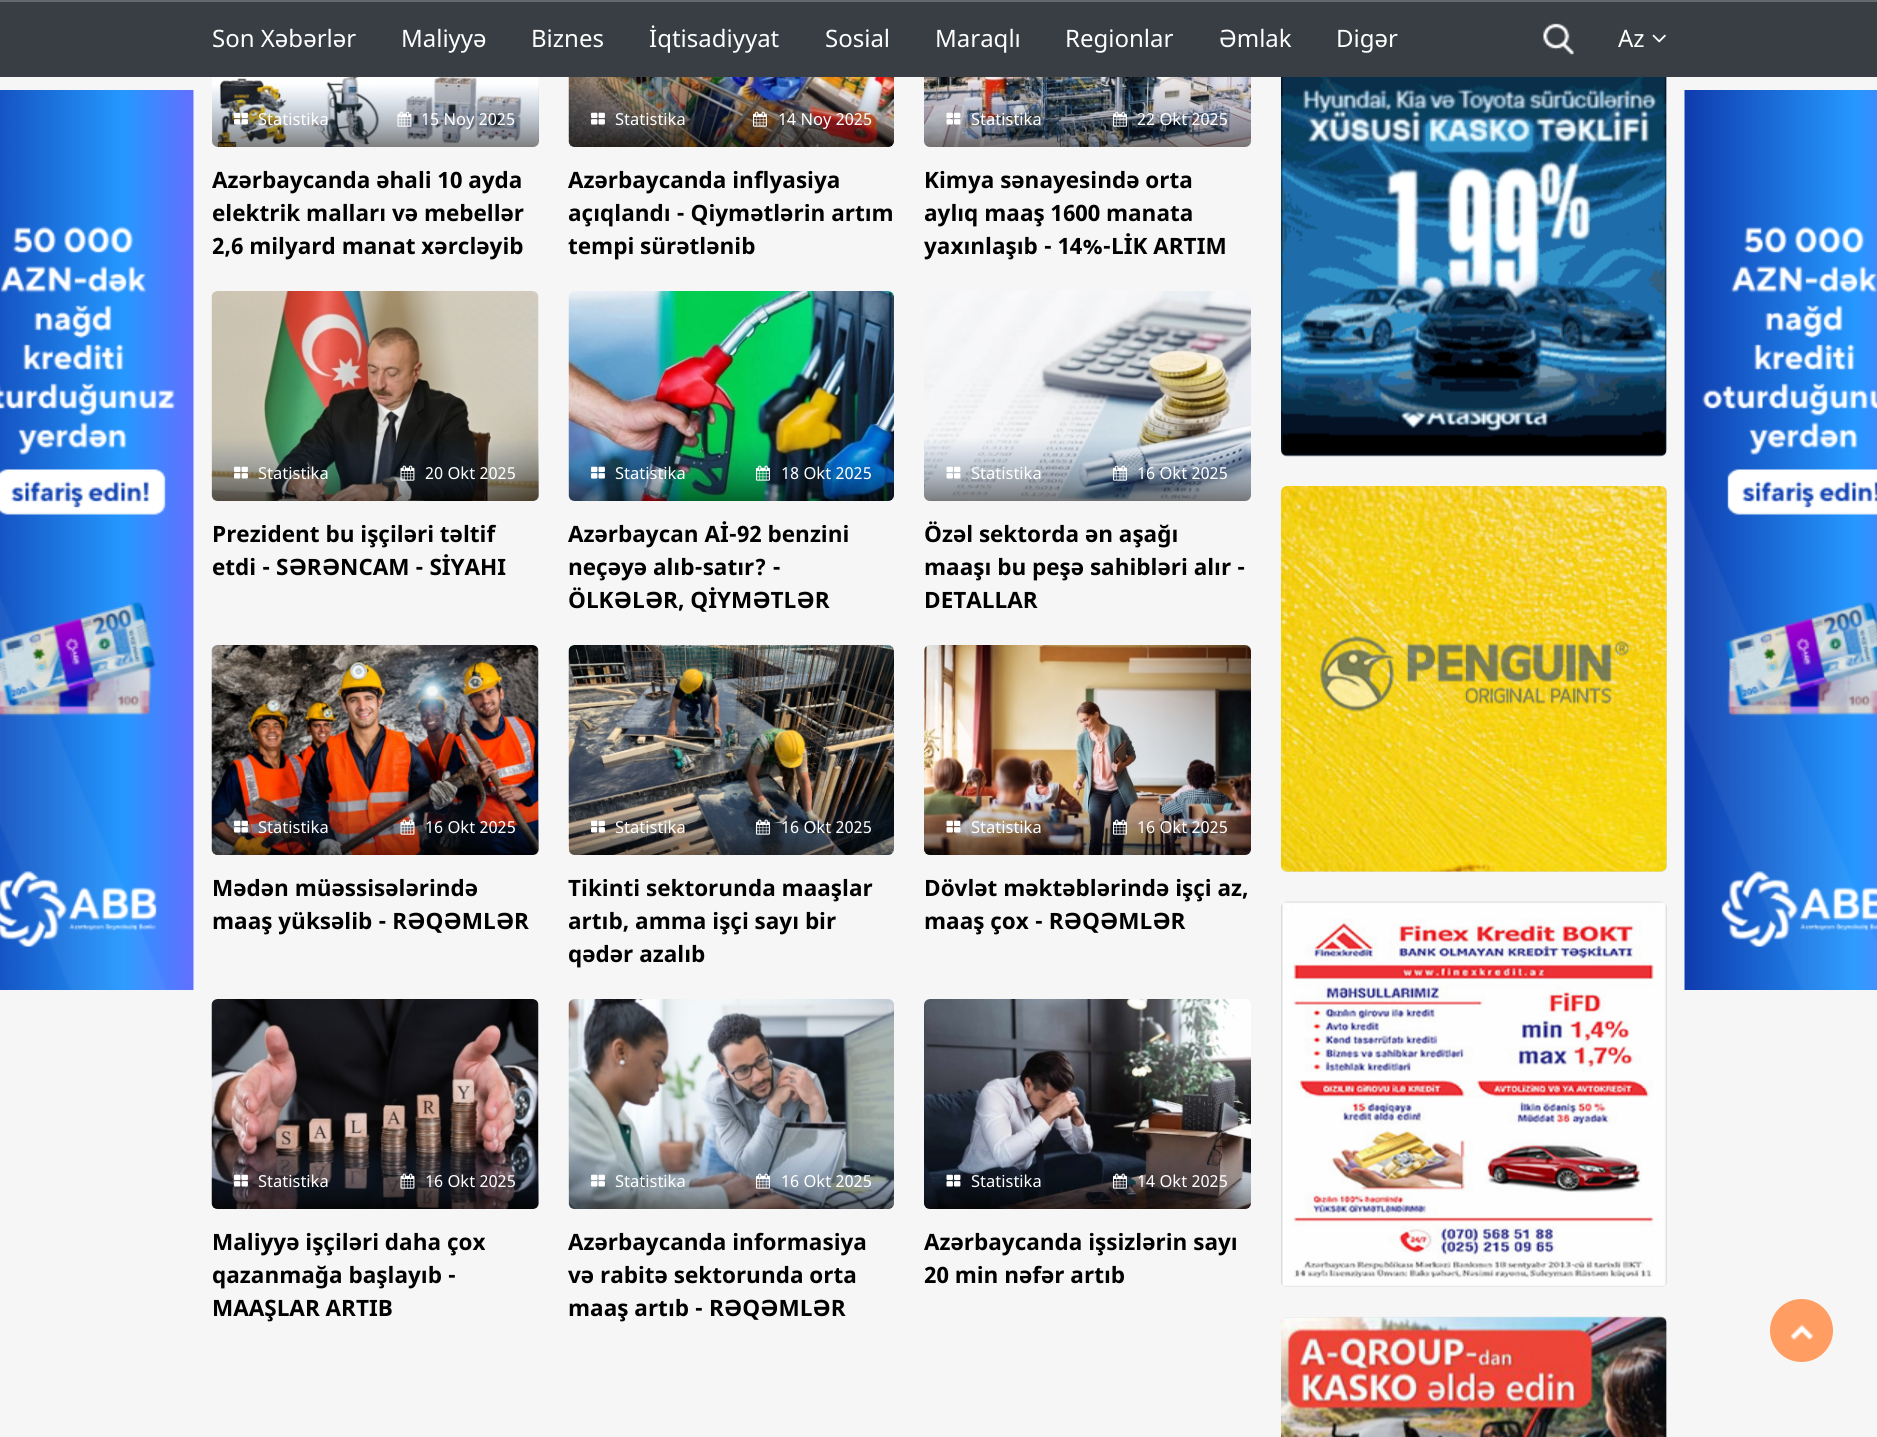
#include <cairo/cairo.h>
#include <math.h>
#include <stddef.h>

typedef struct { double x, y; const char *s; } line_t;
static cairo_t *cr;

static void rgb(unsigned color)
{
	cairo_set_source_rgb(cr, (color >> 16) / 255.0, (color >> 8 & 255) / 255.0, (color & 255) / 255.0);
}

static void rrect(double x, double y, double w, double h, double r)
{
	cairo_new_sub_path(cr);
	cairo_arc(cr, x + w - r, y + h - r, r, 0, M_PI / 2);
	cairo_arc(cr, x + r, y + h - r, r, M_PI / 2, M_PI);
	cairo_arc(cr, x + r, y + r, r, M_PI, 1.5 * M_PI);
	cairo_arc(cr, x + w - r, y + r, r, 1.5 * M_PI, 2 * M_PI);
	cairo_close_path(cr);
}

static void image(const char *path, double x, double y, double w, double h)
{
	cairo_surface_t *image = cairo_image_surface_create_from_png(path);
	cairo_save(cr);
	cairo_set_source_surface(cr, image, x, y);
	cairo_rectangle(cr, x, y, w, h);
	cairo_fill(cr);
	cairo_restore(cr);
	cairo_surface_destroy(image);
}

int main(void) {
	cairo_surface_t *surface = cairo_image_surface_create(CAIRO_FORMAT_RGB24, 1877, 1437);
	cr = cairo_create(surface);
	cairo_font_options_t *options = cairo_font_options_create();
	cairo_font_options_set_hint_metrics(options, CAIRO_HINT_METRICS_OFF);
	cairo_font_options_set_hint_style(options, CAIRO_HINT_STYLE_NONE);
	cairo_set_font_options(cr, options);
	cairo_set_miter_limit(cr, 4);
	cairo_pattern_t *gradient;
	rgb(0xf6f6f6);
	cairo_paint(cr);
	rgb(0xd9d9d9);
	rrect(1281, 71, 386, 385, 6);
	cairo_fill(cr);
	rgb(0x383e44);
	cairo_rectangle(cr, 0, 2, 1877, 75);
	cairo_fill(cr);
	rgb(0x64696e);
	cairo_rectangle(cr, 0, 0, 1877, 2);
	cairo_fill(cr);
	image("img/1.png", 1543, 23, 31, 32);
	image("img/2.png", 1652, 34, 14, 9);
	image("img/3.png", 0, 90, 194, 900);
	image("img/4.png", 1684, 90, 193, 900);
	image("img/5.png", 212, 77, 326, 70);
	gradient = cairo_pattern_create_linear(375, 84, 375, 147);
	cairo_pattern_add_color_stop_rgba(gradient, 0, 0.118, 0.341, 0.6, 0.01);
	cairo_pattern_add_color_stop_rgba(gradient, 0.01, 0.118, 0.337, 0.592, 0.01);
	cairo_pattern_add_color_stop_rgba(gradient, 1, 0, 0, 0, 0.5);
	cairo_set_source(cr, gradient);
	cairo_pattern_destroy(gradient);
	rrect(212, 84, 327, 63, 6);
	cairo_fill(cr);
	image("img/6.png", 234, 112, 14, 13);
	image("img/7.png", 397, 111, 15, 16);
	image("img/8.png", 568, 77, 326, 70);
	gradient = cairo_pattern_create_linear(731, 84, 731, 147);
	cairo_pattern_add_color_stop_rgba(gradient, 0, 0.118, 0.341, 0.6, 0.01);
	cairo_pattern_add_color_stop_rgba(gradient, 0.01, 0.118, 0.337, 0.592, 0.01);
	cairo_pattern_add_color_stop_rgba(gradient, 1, 0, 0, 0, 0.5);
	cairo_set_source(cr, gradient);
	cairo_pattern_destroy(gradient);
	rrect(569, 84, 325, 63, 6);
	cairo_fill(cr);
	image("img/9.png", 591, 112, 14, 13);
	image("img/10.png", 753, 111, 14, 16);
	image("img/11.png", 924, 77, 327, 70);
	gradient = cairo_pattern_create_linear(1088, 84, 1088, 147);
	cairo_pattern_add_color_stop_rgba(gradient, 0, 0.118, 0.341, 0.6, 0.01);
	cairo_pattern_add_color_stop_rgba(gradient, 0.01, 0.118, 0.337, 0.592, 0.01);
	cairo_pattern_add_color_stop_rgba(gradient, 1, 0, 0, 0, 0.5);
	cairo_set_source(cr, gradient);
	cairo_pattern_destroy(gradient);
	rrect(924, 84, 327, 63, 6);
	cairo_fill(cr);
	image("img/12.png", 946, 112, 15, 13);
	image("img/13.png", 1113, 111, 14, 16);
	image("img/14.png", 211, 291, 328, 210);
	gradient = cairo_pattern_create_linear(375, 438, 375, 501);
	cairo_pattern_add_color_stop_rgba(gradient, 0, 0.118, 0.341, 0.6, 0.01);
	cairo_pattern_add_color_stop_rgba(gradient, 0.01, 0.118, 0.337, 0.592, 0.01);
	cairo_pattern_add_color_stop_rgba(gradient, 1, 0, 0, 0, 0.5);
	cairo_set_source(cr, gradient);
	cairo_pattern_destroy(gradient);
	rrect(212, 438, 327, 63, 6);
	cairo_fill(cr);
	image("img/15.png", 234, 466, 14, 13);
	image("img/16.png", 400, 465, 15, 16);
	image("img/17.png", 568, 291, 326, 210);
	gradient = cairo_pattern_create_linear(731, 438, 731, 501);
	cairo_pattern_add_color_stop_rgba(gradient, 0, 0.118, 0.341, 0.6, 0.01);
	cairo_pattern_add_color_stop_rgba(gradient, 0.01, 0.118, 0.337, 0.592, 0.01);
	cairo_pattern_add_color_stop_rgba(gradient, 1, 0, 0, 0, 0.5);
	cairo_set_source(cr, gradient);
	cairo_pattern_destroy(gradient);
	rrect(569, 438, 325, 63, 6);
	cairo_fill(cr);
	image("img/18.png", 591, 466, 14, 13);
	image("img/19.png", 756, 465, 14, 16);
	image("img/20.png", 924, 291, 327, 210);
	gradient = cairo_pattern_create_linear(1088, 438, 1088, 501);
	cairo_pattern_add_color_stop_rgba(gradient, 0, 0.118, 0.341, 0.6, 0.01);
	cairo_pattern_add_color_stop_rgba(gradient, 0.01, 0.118, 0.337, 0.592, 0.01);
	cairo_pattern_add_color_stop_rgba(gradient, 1, 0, 0, 0, 0.5);
	cairo_set_source(cr, gradient);
	cairo_pattern_destroy(gradient);
	rrect(924, 438, 327, 63, 6);
	cairo_fill(cr);
	image("img/21.png", 946, 466, 15, 13);
	image("img/22.png", 1113, 465, 14, 16);
	image("img/23.png", 211, 645, 328, 210);
	gradient = cairo_pattern_create_linear(375, 792, 375, 855);
	cairo_pattern_add_color_stop_rgba(gradient, 0, 0.118, 0.341, 0.6, 0.01);
	cairo_pattern_add_color_stop_rgba(gradient, 0.01, 0.118, 0.337, 0.592, 0.01);
	cairo_pattern_add_color_stop_rgba(gradient, 1, 0, 0, 0, 0.5);
	cairo_set_source(cr, gradient);
	cairo_pattern_destroy(gradient);
	rrect(212, 792, 327, 63, 6);
	cairo_fill(cr);
	image("img/24.png", 234, 820, 14, 13);
	image("img/25.png", 400, 819, 15, 16);
	image("img/26.png", 568, 645, 326, 210);
	gradient = cairo_pattern_create_linear(731, 792, 731, 855);
	cairo_pattern_add_color_stop_rgba(gradient, 0, 0.118, 0.341, 0.6, 0.01);
	cairo_pattern_add_color_stop_rgba(gradient, 0.01, 0.118, 0.337, 0.592, 0.01);
	cairo_pattern_add_color_stop_rgba(gradient, 1, 0, 0, 0, 0.5);
	cairo_set_source(cr, gradient);
	cairo_pattern_destroy(gradient);
	rrect(569, 792, 325, 63, 6);
	cairo_fill(cr);
	image("img/27.png", 591, 820, 14, 13);
	image("img/28.png", 756, 819, 14, 16);
	image("img/29.png", 924, 645, 327, 210);
	gradient = cairo_pattern_create_linear(1088, 792, 1088, 855);
	cairo_pattern_add_color_stop_rgba(gradient, 0, 0.118, 0.341, 0.6, 0.01);
	cairo_pattern_add_color_stop_rgba(gradient, 0.01, 0.118, 0.337, 0.592, 0.01);
	cairo_pattern_add_color_stop_rgba(gradient, 1, 0, 0, 0, 0.5);
	cairo_set_source(cr, gradient);
	cairo_pattern_destroy(gradient);
	rrect(924, 792, 327, 63, 6);
	cairo_fill(cr);
	image("img/30.png", 946, 820, 15, 13);
	image("img/31.png", 1113, 819, 14, 16);
	image("img/32.png", 211, 999, 328, 210);
	gradient = cairo_pattern_create_linear(375, 1146, 375, 1209);
	cairo_pattern_add_color_stop_rgba(gradient, 0, 0.118, 0.341, 0.6, 0.01);
	cairo_pattern_add_color_stop_rgba(gradient, 0.01, 0.118, 0.337, 0.592, 0.01);
	cairo_pattern_add_color_stop_rgba(gradient, 1, 0, 0, 0, 0.5);
	cairo_set_source(cr, gradient);
	cairo_pattern_destroy(gradient);
	rrect(212, 1146, 327, 63, 6);
	cairo_fill(cr);
	image("img/33.png", 234, 1174, 14, 13);
	image("img/34.png", 400, 1173, 15, 16);
	image("img/35.png", 568, 999, 326, 210);
	gradient = cairo_pattern_create_linear(731, 1146, 731, 1209);
	cairo_pattern_add_color_stop_rgba(gradient, 0, 0.118, 0.341, 0.6, 0.01);
	cairo_pattern_add_color_stop_rgba(gradient, 0.01, 0.118, 0.337, 0.592, 0.01);
	cairo_pattern_add_color_stop_rgba(gradient, 1, 0, 0, 0, 0.5);
	cairo_set_source(cr, gradient);
	cairo_pattern_destroy(gradient);
	rrect(569, 1146, 325, 63, 6);
	cairo_fill(cr);
	image("img/36.png", 591, 1174, 14, 13);
	image("img/37.png", 756, 1173, 14, 16);
	image("img/38.png", 924, 999, 327, 210);
	gradient = cairo_pattern_create_linear(1088, 1146, 1088, 1209);
	cairo_pattern_add_color_stop_rgba(gradient, 0, 0.118, 0.341, 0.6, 0.01);
	cairo_pattern_add_color_stop_rgba(gradient, 0.01, 0.118, 0.337, 0.592, 0.01);
	cairo_pattern_add_color_stop_rgba(gradient, 1, 0, 0, 0, 0.5);
	cairo_set_source(cr, gradient);
	cairo_pattern_destroy(gradient);
	rrect(924, 1146, 327, 63, 6);
	cairo_fill(cr);
	image("img/39.png", 946, 1174, 15, 13);
	image("img/40.png", 1113, 1173, 14, 16);
	image("img/41.png", 1281, 77, 386, 380);
	rgb(0xd9d9d9);
	rrect(1281, 486, 386, 386, 6);
	cairo_fill(cr);
	image("img/42.png", 1281, 486, 386, 386);
	rrect(1281, 902, 386, 385, 6);
	cairo_fill(cr);
	image("img/43.png", 1281, 901, 386, 386);
	rrect(1281, 1317, 386, 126, 6);
	cairo_fill(cr);
	image("img/44.png", 1281, 1316, 386, 121);
	rgb(0xff9d62);
	cairo_arc(cr, 1801.5, 1330.5, 30.5, 0, 2 * M_PI);
	cairo_fill_preserve(cr);
	cairo_stroke(cr);
	image("img/45.png", 1790, 1324, 24, 16);
	cairo_select_font_face(cr, "Noto Sans", CAIRO_FONT_SLANT_NORMAL, CAIRO_FONT_WEIGHT_NORMAL);
	cairo_set_font_size(cr, 24);
	rgb(0xffffff);
	{
		static const line_t items[] = {
			{212, 47, "Son Xəbərlər"},
			{401, 47, "Maliyyə"},
			{531, 47, "Biznes"},
			{649, 47, "İqtisadiyyat"},
			{825, 47, "Sosial"},
			{935, 47, "Maraqlı"},
			{1065, 47, "Regionlar"},
			{1219, 47, "Əmlak"},
			{1336, 47, "Digər"},
			{1618, 47, "Az"},
		};
		for (size_t i = 0; i < sizeof items / sizeof *items; i++) {
			cairo_move_to(cr, items[i].x, items[i].y);
			cairo_show_text(cr, items[i].s);
		}
	}
	cairo_set_font_size(cr, 16.5);
	cairo_move_to(cr, 258, 125);
	cairo_show_text(cr, "Statistika");
	cairo_move_to(cr, 421, 125);
	cairo_show_text(cr, "15 Noy 2025");
	cairo_select_font_face(cr, "Noto Sans", CAIRO_FONT_SLANT_NORMAL, CAIRO_FONT_WEIGHT_BOLD);
	cairo_set_font_size(cr, 22.5);
	rgb(0x000000);
	{
		static const line_t items[] = {
			{212, 188, "Azərbaycanda əhali 10 ayda"},
			{212, 221, "elektrik malları və mebellər"},
			{212, 254, "2,6 milyard manat xərcləyib"},
		};
		for (size_t i = 0; i < sizeof items / sizeof *items; i++) {
			cairo_move_to(cr, items[i].x, items[i].y);
			cairo_show_text(cr, items[i].s);
		}
	}
	cairo_select_font_face(cr, "Noto Sans", CAIRO_FONT_SLANT_NORMAL, CAIRO_FONT_WEIGHT_NORMAL);
	cairo_set_font_size(cr, 16.5);
	rgb(0xffffff);
	cairo_move_to(cr, 615, 125);
	cairo_show_text(cr, "Statistika");
	cairo_move_to(cr, 778, 125);
	cairo_show_text(cr, "14 Noy 2025");
	cairo_select_font_face(cr, "Noto Sans", CAIRO_FONT_SLANT_NORMAL, CAIRO_FONT_WEIGHT_BOLD);
	cairo_set_font_size(cr, 22.5);
	rgb(0x000000);
	{
		static const line_t items[] = {
			{568, 188, "Azərbaycanda inflyasiya"},
			{568, 221, "açıqlandı - Qiymətlərin artım"},
			{568, 254, "tempi sürətlənib"},
		};
		for (size_t i = 0; i < sizeof items / sizeof *items; i++) {
			cairo_move_to(cr, items[i].x, items[i].y);
			cairo_show_text(cr, items[i].s);
		}
	}
	cairo_select_font_face(cr, "Noto Sans", CAIRO_FONT_SLANT_NORMAL, CAIRO_FONT_WEIGHT_NORMAL);
	cairo_set_font_size(cr, 16.5);
	rgb(0xffffff);
	cairo_move_to(cr, 971, 125);
	cairo_show_text(cr, "Statistika");
	cairo_move_to(cr, 1137, 125);
	cairo_show_text(cr, "22 Okt 2025");
	cairo_select_font_face(cr, "Noto Sans", CAIRO_FONT_SLANT_NORMAL, CAIRO_FONT_WEIGHT_BOLD);
	cairo_set_font_size(cr, 22.5);
	rgb(0x000000);
	{
		static const line_t items[] = {
			{924, 188, "Kimya sənayesində orta"},
			{924, 221, "aylıq maaş 1600 manata"},
			{924, 254, "yaxınlaşıb - 14%-LİK ARTIM"},
		};
		for (size_t i = 0; i < sizeof items / sizeof *items; i++) {
			cairo_move_to(cr, items[i].x, items[i].y);
			cairo_show_text(cr, items[i].s);
		}
	}
	cairo_select_font_face(cr, "Noto Sans", CAIRO_FONT_SLANT_NORMAL, CAIRO_FONT_WEIGHT_NORMAL);
	cairo_set_font_size(cr, 16.5);
	rgb(0xffffff);
	cairo_move_to(cr, 258, 479);
	cairo_show_text(cr, "Statistika");
	cairo_move_to(cr, 425, 479);
	cairo_show_text(cr, "20 Okt 2025");
	cairo_select_font_face(cr, "Noto Sans", CAIRO_FONT_SLANT_NORMAL, CAIRO_FONT_WEIGHT_BOLD);
	cairo_set_font_size(cr, 22.5);
	rgb(0x000000);
	cairo_move_to(cr, 212, 542);
	cairo_show_text(cr, "Prezident bu işçiləri təltif");
	cairo_move_to(cr, 212, 575);
	cairo_show_text(cr, "etdi - SƏRƏNCAM - SİYAHI");
	cairo_select_font_face(cr, "Noto Sans", CAIRO_FONT_SLANT_NORMAL, CAIRO_FONT_WEIGHT_NORMAL);
	cairo_set_font_size(cr, 16.5);
	rgb(0xffffff);
	cairo_move_to(cr, 615, 479);
	cairo_show_text(cr, "Statistika");
	cairo_move_to(cr, 781, 479);
	cairo_show_text(cr, "18 Okt 2025");
	cairo_select_font_face(cr, "Noto Sans", CAIRO_FONT_SLANT_NORMAL, CAIRO_FONT_WEIGHT_BOLD);
	cairo_set_font_size(cr, 22.5);
	rgb(0x000000);
	{
		static const line_t items[] = {
			{568, 542, "Azərbaycan Aİ-92 benzini"},
			{568, 575, "neçəyə alıb-satır? -"},
			{568, 608, "ÖLKƏLƏR, QİYMƏTLƏR"},
		};
		for (size_t i = 0; i < sizeof items / sizeof *items; i++) {
			cairo_move_to(cr, items[i].x, items[i].y);
			cairo_show_text(cr, items[i].s);
		}
	}
	cairo_select_font_face(cr, "Noto Sans", CAIRO_FONT_SLANT_NORMAL, CAIRO_FONT_WEIGHT_NORMAL);
	cairo_set_font_size(cr, 16.5);
	rgb(0xffffff);
	cairo_move_to(cr, 971, 479);
	cairo_show_text(cr, "Statistika");
	cairo_move_to(cr, 1137, 479);
	cairo_show_text(cr, "16 Okt 2025");
	cairo_select_font_face(cr, "Noto Sans", CAIRO_FONT_SLANT_NORMAL, CAIRO_FONT_WEIGHT_BOLD);
	cairo_set_font_size(cr, 22.5);
	rgb(0x000000);
	{
		static const line_t items[] = {
			{924, 542, "Özəl sektorda ən aşağı"},
			{924, 575, "maaşı bu peşə sahibləri alır -"},
			{924, 608, "DETALLAR"},
		};
		for (size_t i = 0; i < sizeof items / sizeof *items; i++) {
			cairo_move_to(cr, items[i].x, items[i].y);
			cairo_show_text(cr, items[i].s);
		}
	}
	cairo_select_font_face(cr, "Noto Sans", CAIRO_FONT_SLANT_NORMAL, CAIRO_FONT_WEIGHT_NORMAL);
	cairo_set_font_size(cr, 16.5);
	rgb(0xffffff);
	cairo_move_to(cr, 258, 833);
	cairo_show_text(cr, "Statistika");
	cairo_move_to(cr, 425, 833);
	cairo_show_text(cr, "16 Okt 2025");
	cairo_select_font_face(cr, "Noto Sans", CAIRO_FONT_SLANT_NORMAL, CAIRO_FONT_WEIGHT_BOLD);
	cairo_set_font_size(cr, 22.5);
	rgb(0x000000);
	cairo_move_to(cr, 212, 896);
	cairo_show_text(cr, "Mədən müəssisələrində");
	cairo_move_to(cr, 212, 929);
	cairo_show_text(cr, "maaş yüksəlib - RƏQƏMLƏR");
	cairo_select_font_face(cr, "Noto Sans", CAIRO_FONT_SLANT_NORMAL, CAIRO_FONT_WEIGHT_NORMAL);
	cairo_set_font_size(cr, 16.5);
	rgb(0xffffff);
	cairo_move_to(cr, 615, 833);
	cairo_show_text(cr, "Statistika");
	cairo_move_to(cr, 781, 833);
	cairo_show_text(cr, "16 Okt 2025");
	cairo_select_font_face(cr, "Noto Sans", CAIRO_FONT_SLANT_NORMAL, CAIRO_FONT_WEIGHT_BOLD);
	cairo_set_font_size(cr, 22.5);
	rgb(0x000000);
	{
		static const line_t items[] = {
			{568, 896, "Tikinti sektorunda maaşlar"},
			{568, 929, "artıb, amma işçi sayı bir"},
			{568, 962, "qədər azalıb"},
		};
		for (size_t i = 0; i < sizeof items / sizeof *items; i++) {
			cairo_move_to(cr, items[i].x, items[i].y);
			cairo_show_text(cr, items[i].s);
		}
	}
	cairo_select_font_face(cr, "Noto Sans", CAIRO_FONT_SLANT_NORMAL, CAIRO_FONT_WEIGHT_NORMAL);
	cairo_set_font_size(cr, 16.5);
	rgb(0xffffff);
	cairo_move_to(cr, 971, 833);
	cairo_show_text(cr, "Statistika");
	cairo_move_to(cr, 1137, 833);
	cairo_show_text(cr, "16 Okt 2025");
	cairo_select_font_face(cr, "Noto Sans", CAIRO_FONT_SLANT_NORMAL, CAIRO_FONT_WEIGHT_BOLD);
	cairo_set_font_size(cr, 22.5);
	rgb(0x000000);
	cairo_move_to(cr, 924, 896);
	cairo_show_text(cr, "Dövlət məktəblərində işçi az,");
	cairo_move_to(cr, 924, 929);
	cairo_show_text(cr, "maaş çox - RƏQƏMLƏR");
	cairo_select_font_face(cr, "Noto Sans", CAIRO_FONT_SLANT_NORMAL, CAIRO_FONT_WEIGHT_NORMAL);
	cairo_set_font_size(cr, 16.5);
	rgb(0xffffff);
	cairo_move_to(cr, 258, 1187);
	cairo_show_text(cr, "Statistika");
	cairo_move_to(cr, 425, 1187);
	cairo_show_text(cr, "16 Okt 2025");
	cairo_select_font_face(cr, "Noto Sans", CAIRO_FONT_SLANT_NORMAL, CAIRO_FONT_WEIGHT_BOLD);
	cairo_set_font_size(cr, 22.5);
	rgb(0x000000);
	{
		static const line_t items[] = {
			{212, 1250, "Maliyyə işçiləri daha çox"},
			{212, 1283, "qazanmağa başlayıb -"},
			{212, 1316, "MAAŞLAR ARTIB"},
		};
		for (size_t i = 0; i < sizeof items / sizeof *items; i++) {
			cairo_move_to(cr, items[i].x, items[i].y);
			cairo_show_text(cr, items[i].s);
		}
	}
	cairo_select_font_face(cr, "Noto Sans", CAIRO_FONT_SLANT_NORMAL, CAIRO_FONT_WEIGHT_NORMAL);
	cairo_set_font_size(cr, 16.5);
	rgb(0xffffff);
	cairo_move_to(cr, 615, 1187);
	cairo_show_text(cr, "Statistika");
	cairo_move_to(cr, 781, 1187);
	cairo_show_text(cr, "16 Okt 2025");
	cairo_select_font_face(cr, "Noto Sans", CAIRO_FONT_SLANT_NORMAL, CAIRO_FONT_WEIGHT_BOLD);
	cairo_set_font_size(cr, 22.5);
	rgb(0x000000);
	{
		static const line_t items[] = {
			{568, 1250, "Azərbaycanda informasiya"},
			{568, 1283, "və rabitə sektorunda orta"},
			{568, 1316, "maaş artıb - RƏQƏMLƏR"},
		};
		for (size_t i = 0; i < sizeof items / sizeof *items; i++) {
			cairo_move_to(cr, items[i].x, items[i].y);
			cairo_show_text(cr, items[i].s);
		}
	}
	cairo_select_font_face(cr, "Noto Sans", CAIRO_FONT_SLANT_NORMAL, CAIRO_FONT_WEIGHT_NORMAL);
	cairo_set_font_size(cr, 16.5);
	rgb(0xffffff);
	cairo_move_to(cr, 971, 1187);
	cairo_show_text(cr, "Statistika");
	cairo_move_to(cr, 1137, 1187);
	cairo_show_text(cr, "14 Okt 2025");
	cairo_select_font_face(cr, "Noto Sans", CAIRO_FONT_SLANT_NORMAL, CAIRO_FONT_WEIGHT_BOLD);
	cairo_set_font_size(cr, 22.5);
	rgb(0x000000);
	cairo_move_to(cr, 924, 1250);
	cairo_show_text(cr, "Azərbaycanda işsizlərin sayı");
	cairo_move_to(cr, 924, 1283);
	cairo_show_text(cr, "20 min nəfər artıb");
	cairo_surface_write_to_png(surface, "page.png");
	cairo_font_options_destroy(options);
	cairo_destroy(cr);
	cairo_surface_destroy(surface);
	return 0;
}
